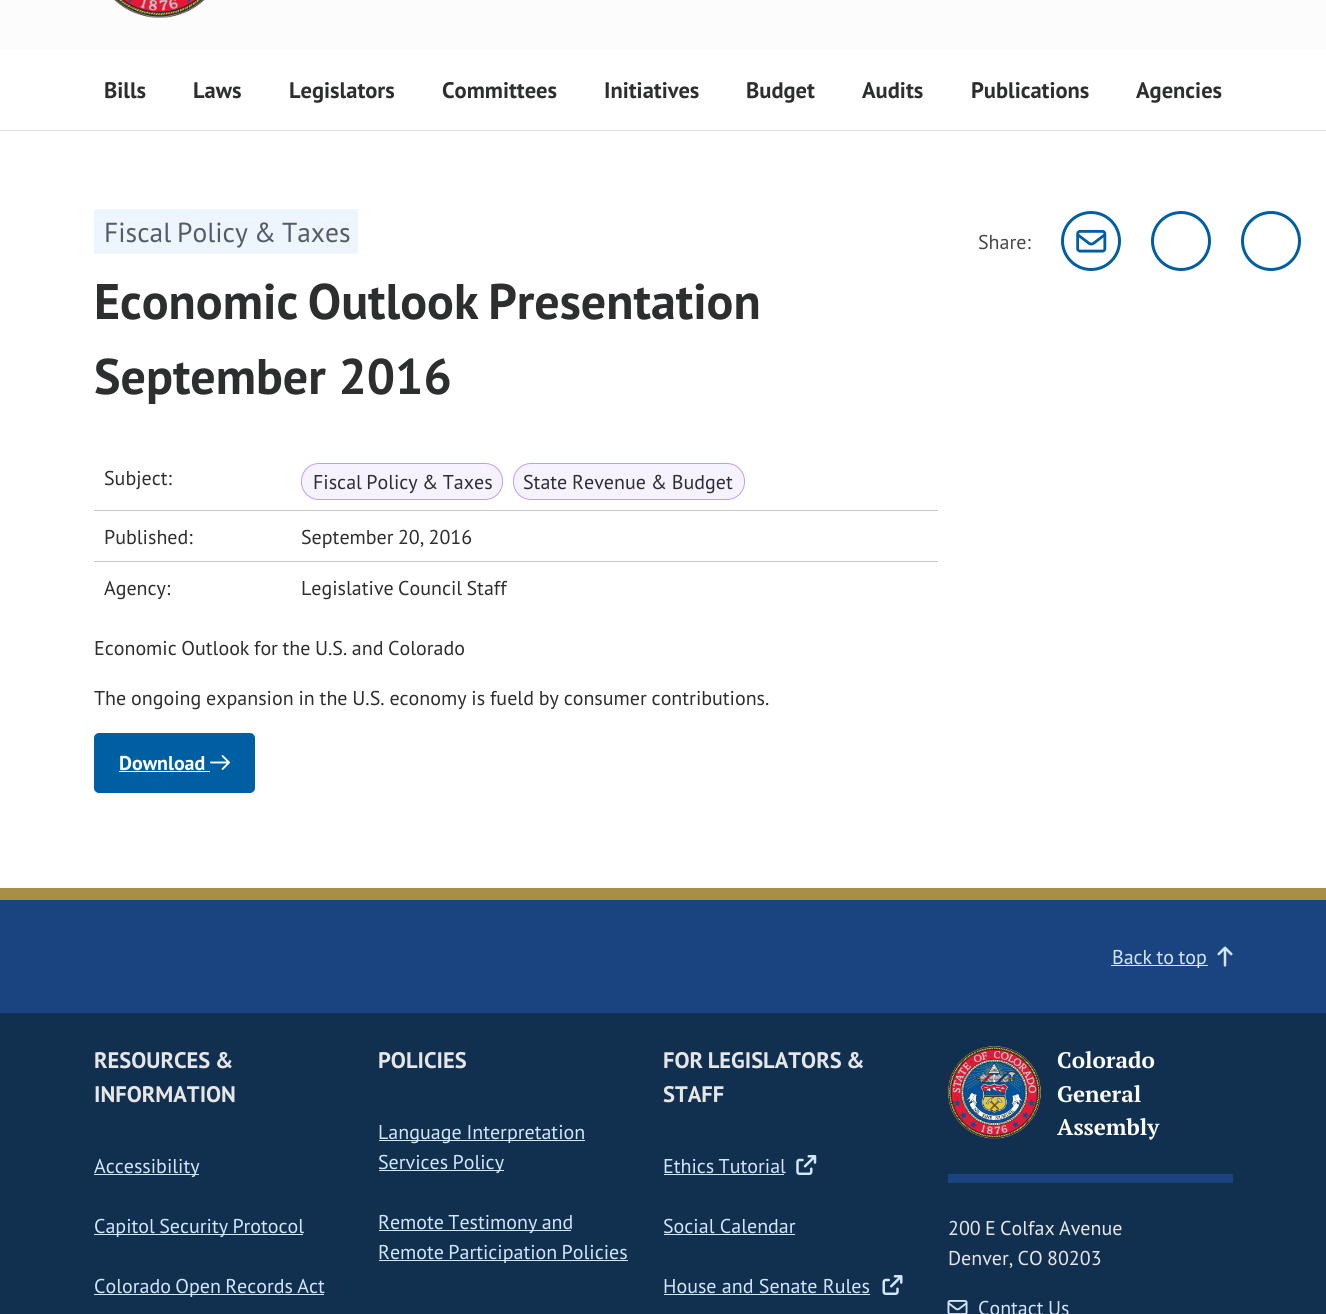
#include <cairo/cairo.h>
#include <math.h>
#include <stddef.h>

typedef struct { double x, y; const char *s; } line_t;
typedef struct { double x, y, w, h; unsigned color; } box_t;
static cairo_t *cr;

static void rgb(unsigned color)
{
	cairo_set_source_rgb(cr, (color >> 16) / 255.0, (color >> 8 & 255) / 255.0, (color & 255) / 255.0);
}

static void tracked(double x, double y, const char *s, double letter, double word)
{
	cairo_move_to(cr, x, y);
	while (*s) {
		char ch[5] = {0};
		int n = 0;
		do ch[n++] = *s++; while ((*s & 0xC0) == 0x80);
		cairo_show_text(cr, ch);
		cairo_rel_move_to(cr, letter + word * (*ch == ' '), 0);
	}
}

static void rrect(double x, double y, double w, double h, double r)
{
	cairo_new_sub_path(cr);
	cairo_arc(cr, x + w - r, y + h - r, r, 0, M_PI / 2);
	cairo_arc(cr, x + r, y + h - r, r, M_PI / 2, M_PI);
	cairo_arc(cr, x + r, y + r, r, M_PI, 1.5 * M_PI);
	cairo_arc(cr, x + w - r, y + r, r, 1.5 * M_PI, 2 * M_PI);
	cairo_close_path(cr);
}

static void image(const char *path, double x, double y, double w, double h)
{
	cairo_surface_t *image = cairo_image_surface_create_from_png(path);
	cairo_save(cr);
	cairo_set_source_surface(cr, image, x, y);
	cairo_rectangle(cr, x, y, w, h);
	cairo_fill(cr);
	cairo_restore(cr);
	cairo_surface_destroy(image);
}

int main(void) {
	cairo_surface_t *surface = cairo_image_surface_create(CAIRO_FORMAT_RGB24, 1326, 1314);
	cr = cairo_create(surface);
	cairo_font_options_t *options = cairo_font_options_create();
	cairo_font_options_set_hint_metrics(options, CAIRO_HINT_METRICS_OFF);
	cairo_font_options_set_hint_style(options, CAIRO_HINT_STYLE_NONE);
	cairo_set_font_options(cr, options);
	cairo_set_miter_limit(cr, 4);
	rgb(0xffffff);
	cairo_paint(cr);
	rgb(0xfcfcfc);
	cairo_rectangle(cr, 0, 0, 1326, 49);
	cairo_fill(cr);
	image("img/1.png", 114, 0, 91, 18);
	{
		static const box_t items[] = {
			{0, 130, 1326, 1, 0xdfe1e2},
			{94, 209, 264, 45, 0xedf5ff},
			{94, 510, 844, 1, 0xc6cace},
		};
		for (size_t i = 0; i < sizeof items / sizeof *items; i++) {
			rgb(items[i].color);
			cairo_rectangle(cr, items[i].x, items[i].y, items[i].w, items[i].h);
			cairo_fill(cr);
		}
	}
	rgb(0xf7f2ff);
	rrect(301.5, 463.5, 201, 36, 17.5);
	cairo_fill_preserve(cr);
	rgb(0xc39deb);
	cairo_set_line_width(cr, 1);
	cairo_stroke(cr);
	rgb(0xf7f2ff);
	rrect(513.5, 463.5, 231, 36, 17.5);
	cairo_fill_preserve(cr);
	rgb(0xc39deb);
	cairo_stroke(cr);
	rgb(0xc6cace);
	cairo_rectangle(cr, 94, 561, 844, 1);
	cairo_fill(cr);
	rgb(0x005ea2);
	rrect(94, 733, 161, 60, 5);
	cairo_fill(cr);
	rgb(0xfcfcfc);
	cairo_rectangle(cr, 119, 771, 91, 1);
	cairo_fill(cr);
	image("img/2.png", 210, 755, 20, 15);
	cairo_arc(cr, 1091, 241, 28.5, 0, 2 * M_PI);
	rgb(0x005ea2);
	cairo_set_line_width(cr, 3);
	cairo_stroke(cr);
	image("img/3.png", 1076, 230, 31, 23);
	cairo_arc(cr, 1181, 241, 28.5, 0, 2 * M_PI);
	cairo_stroke(cr);
	cairo_arc(cr, 1271, 241, 28.5, 0, 2 * M_PI);
	cairo_stroke(cr);
	{
		static const box_t items[] = {
			{0, 900, 1326, 113, 0x1a4480},
			{0, 888, 1326, 12, 0xa88f48},
			{1111, 965, 97, 1, 0xd4e5ff},
		};
		for (size_t i = 0; i < sizeof items / sizeof *items; i++) {
			rgb(items[i].color);
			cairo_rectangle(cr, items[i].x, items[i].y, items[i].w, items[i].h);
			cairo_fill(cr);
		}
	}
	image("img/4.png", 1217, 946, 16, 21);
	{
		static const box_t items[] = {
			{0, 1013, 1326, 301, 0x112f4e},
			{94, 1174, 105, 1, 0xd4e5ff},
			{94, 1234, 209, 1, 0xd4e5ff},
			{94, 1294, 230, 1, 0xd4e5ff},
			{379, 1140, 206, 1, 0xd4e5ff},
			{379, 1170, 125, 1, 0xd4e5ff},
			{379, 1230, 192, 1, 0xd4e5ff},
			{379, 1260, 249, 1, 0xd4e5ff},
			{664, 1174, 120, 1, 0xd4e5ff},
		};
		for (size_t i = 0; i < sizeof items / sizeof *items; i++) {
			rgb(items[i].color);
			cairo_rectangle(cr, items[i].x, items[i].y, items[i].w, items[i].h);
			cairo_fill(cr);
		}
	}
	image("img/5.png", 796, 1155, 21, 20);
	cairo_rectangle(cr, 664, 1234, 131, 1);
	cairo_fill(cr);
	cairo_rectangle(cr, 664, 1294, 206, 1);
	cairo_fill(cr);
	image("img/6.png", 882, 1275, 21, 20);
	image("img/7.png", 947, 1045, 95, 94);
	rgb(0x1a4480);
	cairo_rectangle(cr, 948, 1174, 285, 9);
	cairo_fill(cr);
	image("img/8.png", 947, 1300, 21, 14);
	cairo_select_font_face(cr, "PT Sans", CAIRO_FONT_SLANT_NORMAL, CAIRO_FONT_WEIGHT_BOLD);
	cairo_set_font_size(cr, 22.5);
	rgb(0x2d2e2f);
	{
		static const line_t items[] = {
			{104, 98, "Bills"},
			{193, 98, "Laws"},
			{289, 98, "Legislators"},
			{442, 98, "Committees"},
			{604, 98, "Initiatives"},
			{746, 98, "Budget"},
			{862, 98, "Audits"},
			{971, 98, "Publications"},
			{1136, 98, "Agencies"},
		};
		for (size_t i = 0; i < sizeof items / sizeof *items; i++) {
			cairo_move_to(cr, items[i].x, items[i].y);
			cairo_show_text(cr, items[i].s);
		}
	}
	cairo_select_font_face(cr, "PT Sans", CAIRO_FONT_SLANT_NORMAL, CAIRO_FONT_WEIGHT_NORMAL);
	cairo_set_font_size(cr, 27.5);
	rgb(0x565c65);
	tracked(104, 242, "Fiscal Policy & Taxes", 0, -1.5);
	cairo_select_font_face(cr, "PT Sans", CAIRO_FONT_SLANT_NORMAL, CAIRO_FONT_WEIGHT_BOLD);
	cairo_set_font_size(cr, 50);
	rgb(0x2d2e2f);
	tracked(94, 319, "Economic Outlook Presentation", 0, -3);
	cairo_move_to(cr, 94, 394);
	cairo_show_text(cr, "September 2016");
	cairo_select_font_face(cr, "PT Sans", CAIRO_FONT_SLANT_NORMAL, CAIRO_FONT_WEIGHT_NORMAL);
	cairo_set_font_size(cr, 20);
	cairo_move_to(cr, 104, 485);
	cairo_show_text(cr, "Subject:");
	tracked(313, 489, "Fiscal Policy & Taxes", 0, -1);
	tracked(523, 489, "State Revenue & Budget", 0, -0.5);
	cairo_move_to(cr, 104, 544);
	cairo_show_text(cr, "Published:");
	tracked(301, 544, "September 20, 2016", 0, -1);
	cairo_move_to(cr, 104, 595);
	cairo_show_text(cr, "Agency:");
	tracked(301, 595, "Legislative Council Staff", 0, -1);
	tracked(94, 655, "Economic Outlook for the U.S. and Colorado", 0, -0.75);
	tracked(94, 705, "The ongoing expansion in the U.S. economy is fueld by consumer contributions.", 0, -0.5);
	cairo_select_font_face(cr, "PT Sans", CAIRO_FONT_SLANT_NORMAL, CAIRO_FONT_WEIGHT_BOLD);
	rgb(0xfcfcfc);
	cairo_move_to(cr, 119, 770);
	cairo_show_text(cr, "Download");
	cairo_select_font_face(cr, "PT Sans", CAIRO_FONT_SLANT_NORMAL, CAIRO_FONT_WEIGHT_NORMAL);
	rgb(0x474747);
	cairo_move_to(cr, 978, 249);
	cairo_show_text(cr, "Share:");
	rgb(0xd4e5ff);
	tracked(1112, 964, "Back to top", 0, -1);
	cairo_select_font_face(cr, "PT Sans", CAIRO_FONT_SLANT_NORMAL, CAIRO_FONT_WEIGHT_BOLD);
	cairo_set_font_size(cr, 22.5);
	rgb(0xe6e6e6);
	tracked(94, 1068, "RESOURCES &", 0, -1);
	cairo_move_to(cr, 94, 1102);
	cairo_show_text(cr, "INFORMATION");
	cairo_select_font_face(cr, "PT Sans", CAIRO_FONT_SLANT_NORMAL, CAIRO_FONT_WEIGHT_NORMAL);
	cairo_set_font_size(cr, 20);
	rgb(0xd4e5ff);
	cairo_move_to(cr, 94, 1173);
	cairo_show_text(cr, "Accessibility");
	tracked(94, 1233, "Capitol Security Protocol", 0, -1);
	tracked(94, 1293, "Colorado Open Records Act", 0, -1);
	cairo_select_font_face(cr, "PT Sans", CAIRO_FONT_SLANT_NORMAL, CAIRO_FONT_WEIGHT_BOLD);
	cairo_set_font_size(cr, 22.5);
	rgb(0xe6e6e6);
	cairo_move_to(cr, 378, 1068);
	cairo_show_text(cr, "POLICIES");
	cairo_select_font_face(cr, "PT Sans", CAIRO_FONT_SLANT_NORMAL, CAIRO_FONT_WEIGHT_NORMAL);
	cairo_set_font_size(cr, 20);
	rgb(0xd4e5ff);
	tracked(378, 1139, "Language Interpretation", 0, -0.5);
	{
		static const line_t items[] = {
			{378, 1169, "Services Policy"},
			{378, 1229, "Remote Testimony and"},
			{378, 1259, "Remote Participation Policies"},
		};
		for (size_t i = 0; i < sizeof items / sizeof *items; i++) {
			tracked(items[i].x, items[i].y, items[i].s, 0, -1);
		}
	}
	cairo_select_font_face(cr, "PT Sans", CAIRO_FONT_SLANT_NORMAL, CAIRO_FONT_WEIGHT_BOLD);
	cairo_set_font_size(cr, 22.5);
	rgb(0xe6e6e6);
	tracked(663, 1068, "FOR LEGISLATORS &", 0, -1);
	cairo_move_to(cr, 663, 1102);
	cairo_show_text(cr, "STAFF");
	cairo_select_font_face(cr, "PT Sans", CAIRO_FONT_SLANT_NORMAL, CAIRO_FONT_WEIGHT_NORMAL);
	cairo_set_font_size(cr, 20);
	rgb(0xd4e5ff);
	tracked(663, 1173, "Ethics Tutorial", 0, -1);
	cairo_move_to(cr, 663, 1233);
	cairo_show_text(cr, "Social Calendar");
	cairo_move_to(cr, 663, 1293);
	cairo_show_text(cr, "House and Senate Rules");
	cairo_select_font_face(cr, "PT Serif", CAIRO_FONT_SLANT_NORMAL, CAIRO_FONT_WEIGHT_BOLD);
	cairo_set_font_size(cr, 22.5);
	rgb(0xfcfcfc);
	{
		static const line_t items[] = {
			{1057, 1068, "Colorado"},
			{1057, 1102, "General"},
			{1057, 1135, "Assembly"},
		};
		for (size_t i = 0; i < sizeof items / sizeof *items; i++) {
			cairo_move_to(cr, items[i].x, items[i].y);
			cairo_show_text(cr, items[i].s);
		}
	}
	cairo_select_font_face(cr, "PT Sans", CAIRO_FONT_SLANT_NORMAL, CAIRO_FONT_WEIGHT_NORMAL);
	cairo_set_font_size(cr, 20);
	rgb(0xe6e6e6);
	tracked(948, 1235, "200 E Colfax Avenue", 0, -1);
	tracked(948, 1265, "Denver, CO 80203", 0, -1);
	rgb(0xd4e5ff);
	tracked(978, 1315, "Contact Us", 0, -1);
	cairo_surface_write_to_png(surface, "page.png");
	cairo_font_options_destroy(options);
	cairo_destroy(cr);
	cairo_surface_destroy(surface);
	return 0;
}
